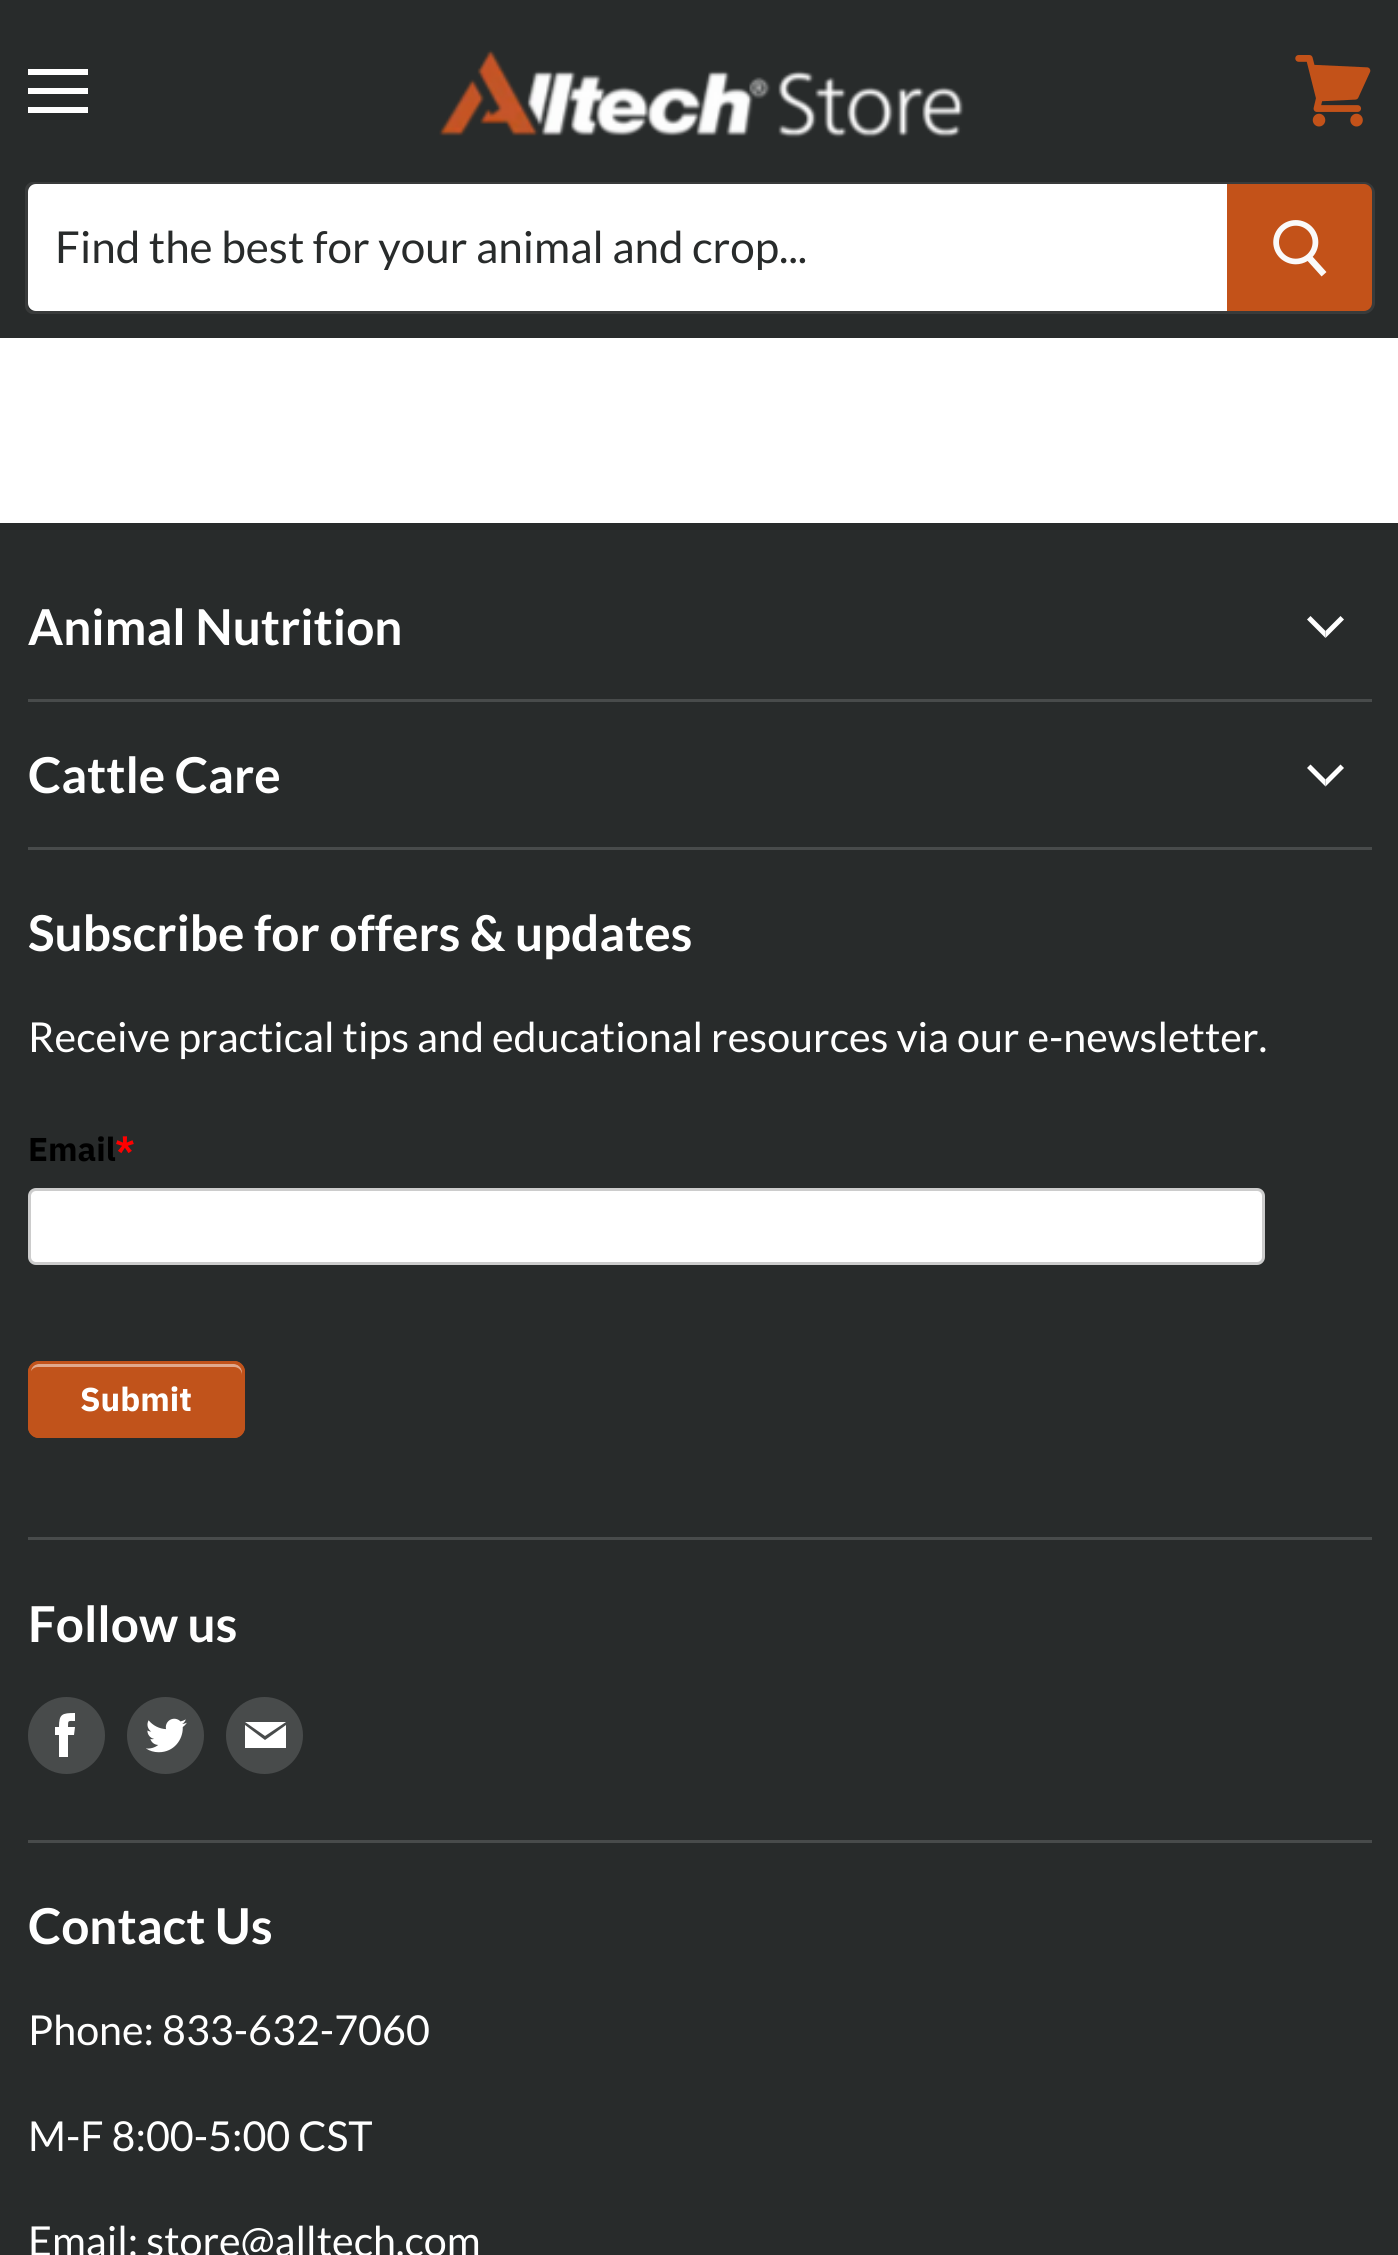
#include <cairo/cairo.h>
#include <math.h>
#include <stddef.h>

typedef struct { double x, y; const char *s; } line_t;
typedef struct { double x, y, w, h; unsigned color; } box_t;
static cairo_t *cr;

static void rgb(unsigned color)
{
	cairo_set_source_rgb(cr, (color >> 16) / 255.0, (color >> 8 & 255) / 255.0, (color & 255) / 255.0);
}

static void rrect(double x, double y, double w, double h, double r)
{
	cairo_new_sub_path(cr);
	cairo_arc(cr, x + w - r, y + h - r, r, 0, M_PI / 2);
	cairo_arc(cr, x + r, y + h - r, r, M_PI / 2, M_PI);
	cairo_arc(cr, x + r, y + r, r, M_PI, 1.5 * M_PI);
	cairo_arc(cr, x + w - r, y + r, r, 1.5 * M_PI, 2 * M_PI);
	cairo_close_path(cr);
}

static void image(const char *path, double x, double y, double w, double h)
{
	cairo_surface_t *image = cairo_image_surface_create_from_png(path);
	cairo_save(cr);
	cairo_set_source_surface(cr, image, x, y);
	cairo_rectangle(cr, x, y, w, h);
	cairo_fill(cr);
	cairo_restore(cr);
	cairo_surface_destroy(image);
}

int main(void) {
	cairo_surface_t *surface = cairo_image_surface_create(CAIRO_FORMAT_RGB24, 1398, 2255);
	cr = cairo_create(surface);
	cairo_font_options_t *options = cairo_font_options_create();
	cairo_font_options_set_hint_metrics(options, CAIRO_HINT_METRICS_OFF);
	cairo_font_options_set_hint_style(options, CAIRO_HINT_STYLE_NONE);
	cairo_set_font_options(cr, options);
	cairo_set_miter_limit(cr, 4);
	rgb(0xffffff);
	cairo_paint(cr);
	{
		static const box_t items[] = {
			{0, 0, 1398, 338, 0x282b2b},
			{28, 69, 60, 6, 0xffffff},
			{28, 88, 60, 6, 0xffffff},
			{28, 107, 60, 6, 0xffffff},
		};
		for (size_t i = 0; i < sizeof items / sizeof *items; i++) {
			rgb(items[i].color);
			cairo_rectangle(cr, items[i].x, items[i].y, items[i].w, items[i].h);
			cairo_fill(cr);
		}
	}
	image("img/1.png", 1295, 55, 76, 72);
	image("img/2.png", 439, 50, 525, 88);
	cairo_new_path(cr);
	cairo_move_to(cr, 33, 183.5);
	cairo_line_to(cr, 1364, 183.5);
	cairo_curve_to(cr, 1369, 183.5, 1373.5, 188, 1373.5, 193);
	cairo_line_to(cr, 1373.5, 303);
	cairo_curve_to(cr, 1373.5, 308, 1369, 312.5, 1364, 312.5);
	cairo_line_to(cr, 33, 312.5);
	cairo_curve_to(cr, 29.5, 312.5, 26.5, 309.5, 26.5, 306);
	cairo_line_to(cr, 26.5, 190);
	cairo_curve_to(cr, 26.5, 186.5, 29.5, 183.5, 33, 183.5);
	cairo_close_path(cr);
	cairo_set_source_rgba(cr, 0.498, 0.498, 0.498, 0.2);
	cairo_set_line_width(cr, 3);
	cairo_stroke(cr);
	rgb(0xffffff);
	cairo_new_path(cr);
	cairo_move_to(cr, 36, 184);
	cairo_line_to(cr, 1227, 184);
	cairo_line_to(cr, 1227, 311);
	cairo_line_to(cr, 36, 311);
	cairo_curve_to(cr, 31.5, 311, 28, 307.5, 28, 303);
	cairo_line_to(cr, 28, 192);
	cairo_curve_to(cr, 28, 187.5, 31.5, 184, 36, 184);
	cairo_close_path(cr);
	cairo_fill(cr);
	rgb(0xc35219);
	cairo_new_path(cr);
	cairo_move_to(cr, 1228.5, 185.5);
	cairo_line_to(cr, 1364, 185.5);
	cairo_curve_to(cr, 1367.5, 185.5, 1370.5, 188.5, 1370.5, 192);
	cairo_line_to(cr, 1370.5, 303);
	cairo_curve_to(cr, 1370.5, 306.5, 1367.5, 309.5, 1364, 309.5);
	cairo_line_to(cr, 1228.5, 309.5);
	cairo_close_path(cr);
	cairo_fill_preserve(cr);
	cairo_stroke(cr);
	image("img/3.png", 1273, 220, 54, 57);
	rgb(0x282b2b);
	cairo_rectangle(cr, 0, 523, 1398, 1732);
	cairo_fill(cr);
	rgb(0x484b4b);
	cairo_rectangle(cr, 28, 699, 1344, 3);
	cairo_fill(cr);
	rgb(0xffffff);
	cairo_set_fill_rule(cr, CAIRO_FILL_RULE_EVEN_ODD);
	cairo_new_path(cr);
	cairo_move_to(cr, 1325.5, 638);
	cairo_line_to(cr, 1344, 619.5);
	cairo_line_to(cr, 1340.5, 616);
	cairo_line_to(cr, 1325.5, 631);
	cairo_close_path(cr);
	cairo_fill(cr);
	cairo_new_path(cr);
	cairo_move_to(cr, 1325.5, 631);
	cairo_line_to(cr, 1310.5, 616);
	cairo_line_to(cr, 1307, 619.5);
	cairo_line_to(cr, 1325.5, 638);
	cairo_close_path(cr);
	cairo_fill(cr);
	rgb(0x484b4b);
	cairo_rectangle(cr, 28, 847, 1344, 3);
	cairo_fill(cr);
	rgb(0xffffff);
	cairo_new_path(cr);
	cairo_move_to(cr, 1325.5, 786.5);
	cairo_line_to(cr, 1344, 768);
	cairo_line_to(cr, 1340.5, 764.5);
	cairo_line_to(cr, 1325.5, 779.5);
	cairo_close_path(cr);
	cairo_fill(cr);
	cairo_new_path(cr);
	cairo_move_to(cr, 1325.5, 779.5);
	cairo_line_to(cr, 1310.5, 764.5);
	cairo_line_to(cr, 1307, 768);
	cairo_line_to(cr, 1325.5, 786.5);
	cairo_close_path(cr);
	cairo_fill(cr);
	rgb(0x484b4b);
	cairo_rectangle(cr, 28, 1537, 1344, 3);
	cairo_fill(cr);
	rgb(0xffffff);
	rrect(29.5, 1189.5, 1234, 74, 6.5);
	cairo_fill_preserve(cr);
	rgb(0xcccccc);
	cairo_stroke(cr);
	rgb(0xc1531b);
	rrect(28, 1361, 217, 77, 11);
	cairo_fill(cr);
	rgb(0xe0a98d);
	cairo_set_fill_rule(cr, CAIRO_FILL_RULE_WINDING);
	cairo_new_path(cr);
	cairo_move_to(cr, 38, 1367);
	cairo_line_to(cr, 234, 1367);
	cairo_curve_to(cr, 238, 1367, 242, 1370, 242, 1375);
	cairo_line_to(cr, 242, 1372);
	cairo_curve_to(cr, 242, 1368, 238, 1364, 234, 1364);
	cairo_line_to(cr, 38, 1364);
	cairo_curve_to(cr, 34, 1364, 30, 1368, 30, 1372);
	cairo_line_to(cr, 30, 1375);
	cairo_curve_to(cr, 30, 1370, 34, 1367, 38, 1367);
	cairo_close_path(cr);
	cairo_fill(cr);
	rrect(29.5, 1362.5, 214, 74, 9.5);
	rgb(0xc1531b);
	cairo_stroke(cr);
	rgb(0x484b4b);
	cairo_rectangle(cr, 28, 1840, 1344, 3);
	cairo_fill(cr);
	cairo_arc(cr, 66.5, 1735.5, 38.5, 0, 2 * M_PI);
	cairo_fill(cr);
	rgb(0xffffff);
	cairo_set_fill_rule(cr, CAIRO_FILL_RULE_EVEN_ODD);
	cairo_new_path(cr);
	cairo_move_to(cr, 74, 1735);
	cairo_line_to(cr, 68, 1735);
	cairo_line_to(cr, 68, 1757);
	cairo_line_to(cr, 59, 1757);
	cairo_line_to(cr, 59, 1735);
	cairo_line_to(cr, 55, 1735);
	cairo_line_to(cr, 55, 1727);
	cairo_line_to(cr, 59, 1727);
	cairo_curve_to(cr, 59, 1714, 62, 1713, 75, 1713);
	cairo_line_to(cr, 75, 1721);
	cairo_curve_to(cr, 68, 1721, 68, 1720, 68, 1727);
	cairo_line_to(cr, 75, 1727);
	cairo_close_path(cr);
	cairo_fill(cr);
	rgb(0x484b4b);
	cairo_arc(cr, 165.5, 1735.5, 38.5, 0, 2 * M_PI);
	cairo_fill(cr);
	image("img/4.png", 146, 1718, 41, 35);
	cairo_arc(cr, 264.5, 1735.5, 38.5, 0, 2 * M_PI);
	cairo_fill(cr);
	rgb(0xffffff);
	cairo_new_path(cr);
	cairo_move_to(cr, 286, 1722);
	cairo_line_to(cr, 245, 1722);
	cairo_line_to(cr, 265, 1736);
	cairo_close_path(cr);
	cairo_move_to(cr, 265, 1740);
	cairo_line_to(cr, 245, 1725);
	cairo_line_to(cr, 245, 1748);
	cairo_line_to(cr, 286, 1748);
	cairo_line_to(cr, 286, 1725);
	cairo_close_path(cr);
	cairo_fill(cr);
	cairo_save(cr);
	cairo_set_fill_rule(cr, CAIRO_FILL_RULE_WINDING);
	cairo_rectangle(cr, 55, 217, 1144, 53);
	cairo_clip(cr);
	cairo_select_font_face(cr, "Lato", CAIRO_FONT_SLANT_NORMAL, CAIRO_FONT_WEIGHT_NORMAL);
	cairo_set_font_size(cr, 44);
	rgb(0x282b2b);
	cairo_move_to(cr, 55, 263);
	cairo_show_text(cr, "Find the best for your animal and crop...");
	cairo_restore(cr);
	cairo_select_font_face(cr, "Lato", CAIRO_FONT_SLANT_NORMAL, CAIRO_FONT_WEIGHT_BOLD);
	cairo_set_font_size(cr, 49.5);
	{
		static const line_t items[] = {
			{28, 645, "Animal Nutrition"},
			{28, 793, "Cattle Care"},
			{28, 951, "Subscribe for offers & updates"},
		};
		for (size_t i = 0; i < sizeof items / sizeof *items; i++) {
			cairo_move_to(cr, items[i].x, items[i].y);
			cairo_show_text(cr, items[i].s);
		}
	}
	cairo_select_font_face(cr, "Lato", CAIRO_FONT_SLANT_NORMAL, CAIRO_FONT_WEIGHT_NORMAL);
	cairo_set_font_size(cr, 41.25);
	cairo_move_to(cr, 28, 1052);
	cairo_show_text(cr, "Receive practical tips and educational resources via our e-newsletter.");
	cairo_select_font_face(cr, "IBM Plex Sans", CAIRO_FONT_SLANT_NORMAL, CAIRO_FONT_WEIGHT_BOLD);
	cairo_set_font_size(cr, 33);
	rgb(0x000000);
	cairo_move_to(cr, 28, 1161);
	cairo_show_text(cr, "Email");
	rgb(0xff0000);
	cairo_move_to(cr, 115, 1161);
	cairo_show_text(cr, "*");
	rgb(0xffffff);
	cairo_move_to(cr, 80, 1411);
	cairo_show_text(cr, "Submit");
	cairo_select_font_face(cr, "Lato", CAIRO_FONT_SLANT_NORMAL, CAIRO_FONT_WEIGHT_BOLD);
	cairo_set_font_size(cr, 49.5);
	cairo_move_to(cr, 28, 1642);
	cairo_show_text(cr, "Follow us");
	cairo_move_to(cr, 28, 1944);
	cairo_show_text(cr, "Contact Us");
	cairo_select_font_face(cr, "Lato", CAIRO_FONT_SLANT_NORMAL, CAIRO_FONT_WEIGHT_NORMAL);
	cairo_set_font_size(cr, 41.25);
	{
		static const line_t items[] = {
			{28, 2045, "Phone: 833-632-7060"},
			{28, 2151, "M-F 8:00-5:00 CST"},
			{28, 2256, "Email: store@alltech.com"},
		};
		for (size_t i = 0; i < sizeof items / sizeof *items; i++) {
			cairo_move_to(cr, items[i].x, items[i].y);
			cairo_show_text(cr, items[i].s);
		}
	}
	cairo_surface_write_to_png(surface, "page.png");
	cairo_font_options_destroy(options);
	cairo_destroy(cr);
	cairo_surface_destroy(surface);
	return 0;
}
